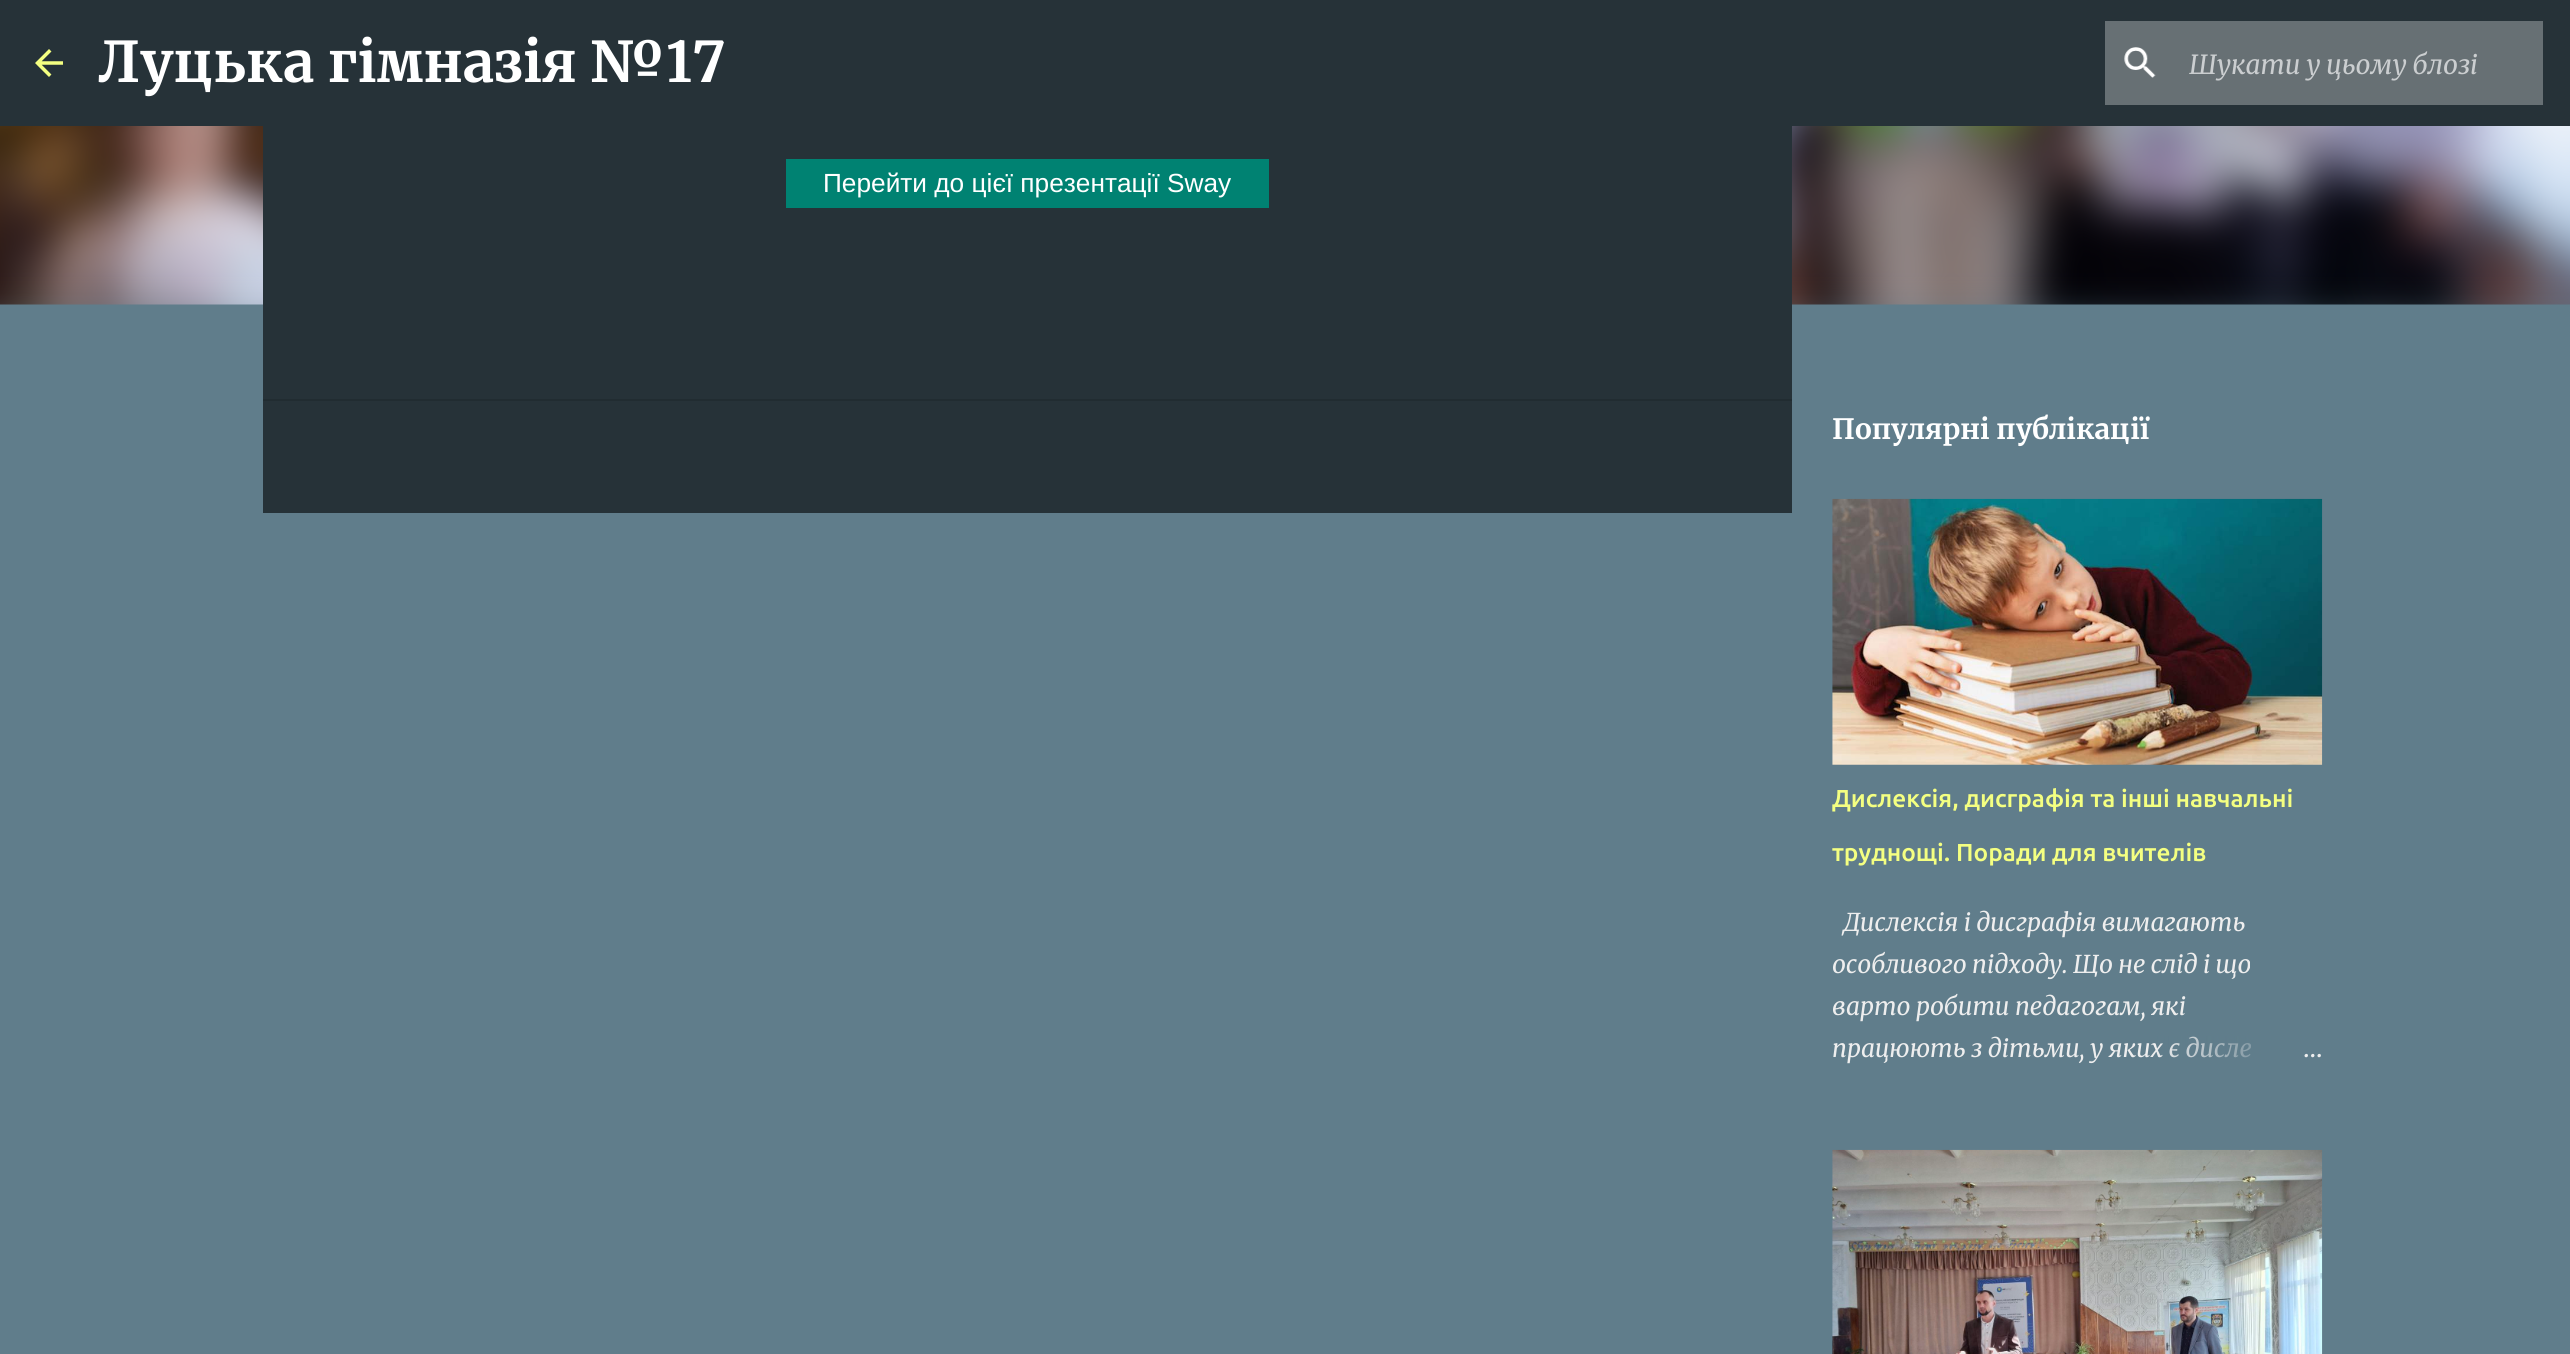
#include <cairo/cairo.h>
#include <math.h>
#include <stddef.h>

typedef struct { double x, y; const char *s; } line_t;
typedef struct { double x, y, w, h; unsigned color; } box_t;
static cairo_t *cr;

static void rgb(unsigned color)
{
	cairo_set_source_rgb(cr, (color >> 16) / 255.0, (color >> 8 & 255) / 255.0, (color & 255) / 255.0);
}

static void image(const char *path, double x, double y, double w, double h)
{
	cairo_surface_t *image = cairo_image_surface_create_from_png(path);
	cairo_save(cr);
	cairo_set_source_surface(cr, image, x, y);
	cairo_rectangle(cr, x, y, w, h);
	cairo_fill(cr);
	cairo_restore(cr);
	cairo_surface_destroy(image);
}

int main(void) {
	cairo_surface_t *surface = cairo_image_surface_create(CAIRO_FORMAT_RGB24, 2570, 1354);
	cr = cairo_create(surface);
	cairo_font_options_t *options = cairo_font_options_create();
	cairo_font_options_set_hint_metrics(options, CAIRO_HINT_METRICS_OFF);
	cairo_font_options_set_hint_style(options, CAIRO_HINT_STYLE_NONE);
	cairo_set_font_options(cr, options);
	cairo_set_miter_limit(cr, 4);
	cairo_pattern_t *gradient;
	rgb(0x607d8b);
	cairo_paint(cr);
	rgb(0x263238);
	cairo_rectangle(cr, 0, 0, 2570, 126);
	cairo_fill(cr);
	image("img/1.png", 35, 49, 28, 28);
	rgb(0x677074);
	cairo_rectangle(cr, 2105, 21, 438, 84);
	cairo_fill(cr);
	image("img/2.png", 2124, 47, 32, 31);
	image("img/5.png", 0, 126, 2570, 179);
	{
		static const box_t items[] = {
			{263, 126, 1529, 273, 0x263238},
			{786, 159, 483, 49, 0x008272},
			{263, 401, 1529, 112, 0x263238},
			{263, 399, 1529, 2, 0x212c31},
		};
		for (size_t i = 0; i < sizeof items / sizeof *items; i++) {
			rgb(items[i].color);
			cairo_rectangle(cr, items[i].x, items[i].y, items[i].w, items[i].h);
			cairo_fill(cr);
		}
	}
	image("img/3.png", 1832, 498, 491, 267);
	image("img/4.png", 1832, 1149, 491, 205);
	cairo_select_font_face(cr, "Merriweather", CAIRO_FONT_SLANT_NORMAL, CAIRO_FONT_WEIGHT_BOLD);
	cairo_set_font_size(cr, 56);
	rgb(0xffffff);
	cairo_move_to(cr, 98, 82);
	cairo_show_text(cr, "Луцька гімназія №17");
	cairo_select_font_face(cr, "Merriweather", CAIRO_FONT_SLANT_ITALIC, CAIRO_FONT_WEIGHT_NORMAL);
	cairo_set_font_size(cr, 26.25);
	rgb(0xcbced0);
	cairo_move_to(cr, 2189, 74);
	cairo_show_text(cr, "Шукати у цьому блозі");
	cairo_select_font_face(cr, "Liberation Sans", CAIRO_FONT_SLANT_NORMAL, CAIRO_FONT_WEIGHT_NORMAL);
	rgb(0xffffff);
	cairo_move_to(cr, 823, 192);
	cairo_show_text(cr, "Перейти до цієї презентації Sway");
	cairo_select_font_face(cr, "Merriweather", CAIRO_FONT_SLANT_NORMAL, CAIRO_FONT_WEIGHT_BOLD);
	cairo_set_font_size(cr, 28);
	cairo_move_to(cr, 1832, 439);
	cairo_show_text(cr, "Популярні публікації");
	cairo_select_font_face(cr, "Ubuntu Medium", CAIRO_FONT_SLANT_NORMAL, CAIRO_FONT_WEIGHT_NORMAL);
	cairo_set_font_size(cr, 24.5);
	rgb(0xf4ff81);
	cairo_move_to(cr, 1832, 807);
	cairo_show_text(cr, "Дислексія, дисграфія та інші навчальні");
	cairo_move_to(cr, 1832, 861);
	cairo_show_text(cr, "труднощі. Поради для вчителів");
	cairo_select_font_face(cr, "Merriweather", CAIRO_FONT_SLANT_ITALIC, CAIRO_FONT_WEIGHT_NORMAL);
	rgb(0xeeeeee);
	{
		static const line_t items[] = {
			{1843, 931, "Дислексія і дисграфія вимагають"},
			{1832, 973, "особливого підходу. Що не слід і що"},
			{1832, 1015, "варто робити педагогам, які"},
			{1832, 1057, "працюють з дітьми, у яких є дисле"},
		};
		for (size_t i = 0; i < sizeof items / sizeof *items; i++) {
			cairo_move_to(cr, items[i].x, items[i].y);
			cairo_show_text(cr, items[i].s);
		}
	}
	gradient = cairo_pattern_create_linear(2322, 1048, 2154, 1048);
	cairo_pattern_add_color_stop_rgba(gradient, 0, 0.376, 0.49, 0.545, 1);
	cairo_pattern_add_color_stop_rgba(gradient, 0.2, 0.376, 0.49, 0.545, 1);
	cairo_pattern_add_color_stop_rgba(gradient, 1, 0.376, 0.49, 0.545, 0);
	cairo_set_source(cr, gradient);
	cairo_pattern_destroy(gradient);
	cairo_rectangle(cr, 2157, 1036, 95, 22);
	cairo_fill(cr);
	cairo_select_font_face(cr, "Merriweather", CAIRO_FONT_SLANT_NORMAL, CAIRO_FONT_WEIGHT_NORMAL);
	rgb(0xeeeeee);
	cairo_move_to(cr, 2303, 1057);
	cairo_show_text(cr, "…");
	cairo_surface_write_to_png(surface, "page.png");
	cairo_font_options_destroy(options);
	cairo_destroy(cr);
	cairo_surface_destroy(surface);
	return 0;
}
